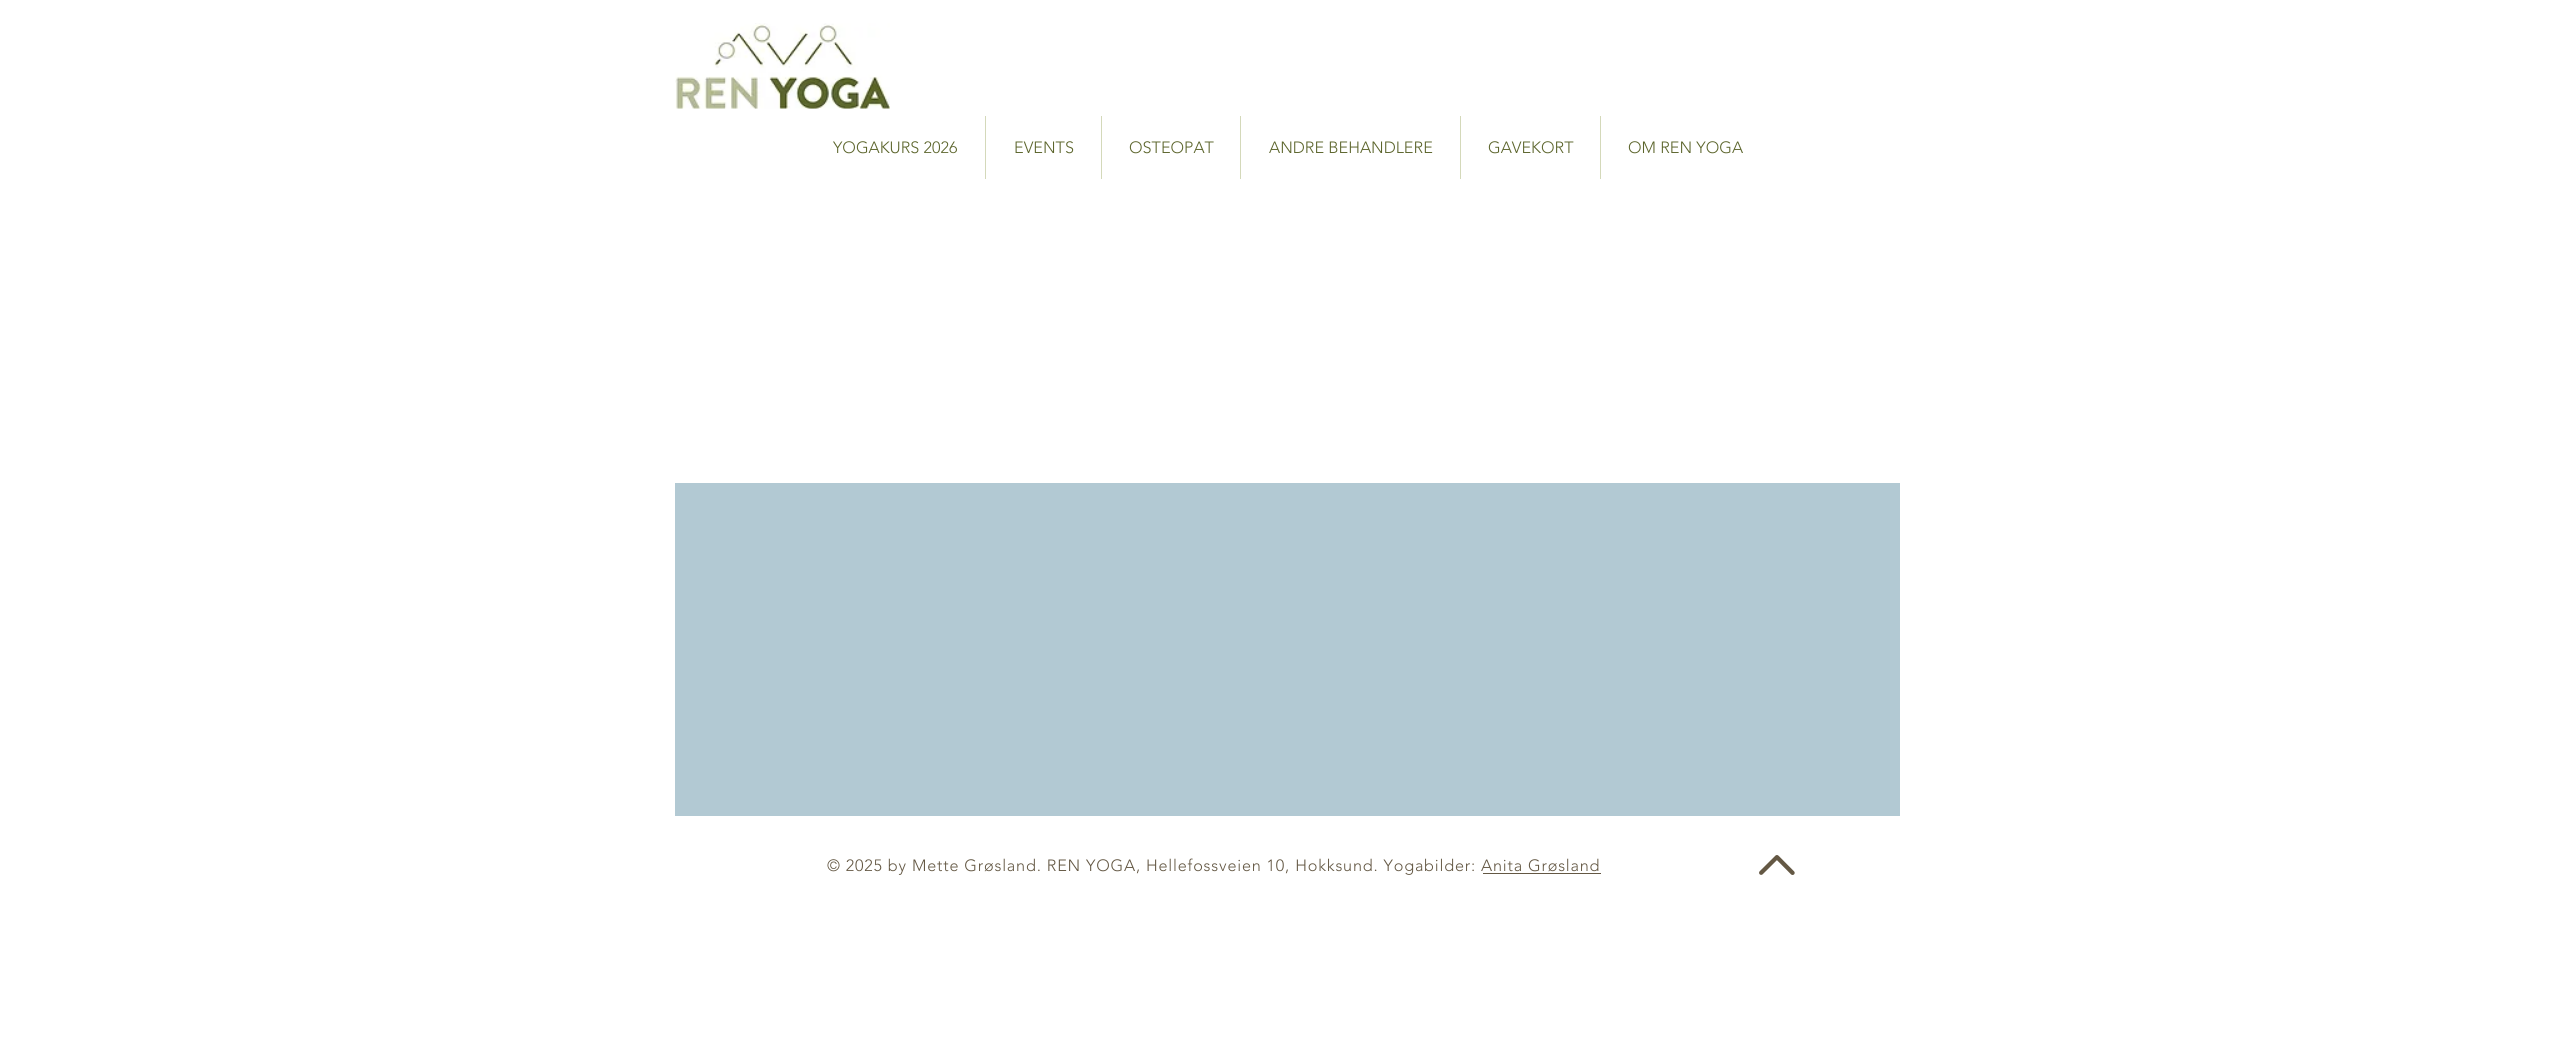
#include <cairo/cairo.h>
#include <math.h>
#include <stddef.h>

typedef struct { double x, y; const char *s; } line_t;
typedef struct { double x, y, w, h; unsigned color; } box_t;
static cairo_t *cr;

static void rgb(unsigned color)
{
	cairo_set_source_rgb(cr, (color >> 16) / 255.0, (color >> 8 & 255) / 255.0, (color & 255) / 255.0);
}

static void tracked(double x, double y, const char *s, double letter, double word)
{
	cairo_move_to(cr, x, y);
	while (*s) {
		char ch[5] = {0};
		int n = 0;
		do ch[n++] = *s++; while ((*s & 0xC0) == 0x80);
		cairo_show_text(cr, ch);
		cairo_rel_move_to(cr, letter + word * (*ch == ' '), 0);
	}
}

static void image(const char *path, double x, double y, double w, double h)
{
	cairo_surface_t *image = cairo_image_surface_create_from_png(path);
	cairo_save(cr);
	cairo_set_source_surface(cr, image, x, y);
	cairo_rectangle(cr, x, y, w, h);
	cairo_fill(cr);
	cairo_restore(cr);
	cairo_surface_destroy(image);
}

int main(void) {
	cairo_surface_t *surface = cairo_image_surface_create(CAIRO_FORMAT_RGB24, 2575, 1048);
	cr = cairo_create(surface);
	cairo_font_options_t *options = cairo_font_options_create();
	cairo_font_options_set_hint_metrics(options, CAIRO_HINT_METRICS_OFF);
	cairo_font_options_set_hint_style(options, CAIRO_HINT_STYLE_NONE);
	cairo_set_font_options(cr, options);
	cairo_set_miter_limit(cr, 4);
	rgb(0xffffff);
	cairo_paint(cr);
	image("img/1.png", 675, 23, 215, 86);
	{
		static const box_t items[] = {
			{985, 116, 1, 63, 0xd4d9ba},
			{1101, 116, 1, 63, 0xd4d9ba},
			{1240, 116, 1, 63, 0xd4d9ba},
			{1460, 116, 1, 63, 0xd4d9ba},
			{1600, 116, 1, 63, 0xd4d9ba},
			{675, 483, 1225, 333, 0xb2c9d3},
			{1483, 873, 118, 1, 0x645844},
		};
		for (size_t i = 0; i < sizeof items / sizeof *items; i++) {
			rgb(items[i].color);
			cairo_rectangle(cr, items[i].x, items[i].y, items[i].w, items[i].h);
			cairo_fill(cr);
		}
	}
	image("img/2.png", 1759, 855, 36, 20);
	cairo_select_font_face(cr, "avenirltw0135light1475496 Light", CAIRO_FONT_SLANT_NORMAL, CAIRO_FONT_WEIGHT_NORMAL);
	cairo_set_font_size(cr, 16.25);
	rgb(0x5c652c);
	{
		static const line_t items[] = {
			{833, 153, "YOGAKURS 2026"},
			{1014, 153, "EVENTS"},
			{1129, 153, "OSTEOPAT"},
			{1269, 153, "ANDRE BEHANDLERE"},
			{1488, 153, "GAVEKORT"},
			{1628, 153, "OM REN YOGA"},
		};
		for (size_t i = 0; i < sizeof items / sizeof *items; i++) {
			cairo_move_to(cr, items[i].x, items[i].y);
			cairo_show_text(cr, items[i].s);
		}
	}
	rgb(0x645844);
	tracked(827, 871, "© 2025 by Mette Grøsland. REN YOGA, Hellefossveien 10, Hokksund. Yogabilder: Anita Grøsland", 0.8, 0);
	cairo_surface_write_to_png(surface, "page.png");
	cairo_font_options_destroy(options);
	cairo_destroy(cr);
	cairo_surface_destroy(surface);
	return 0;
}
